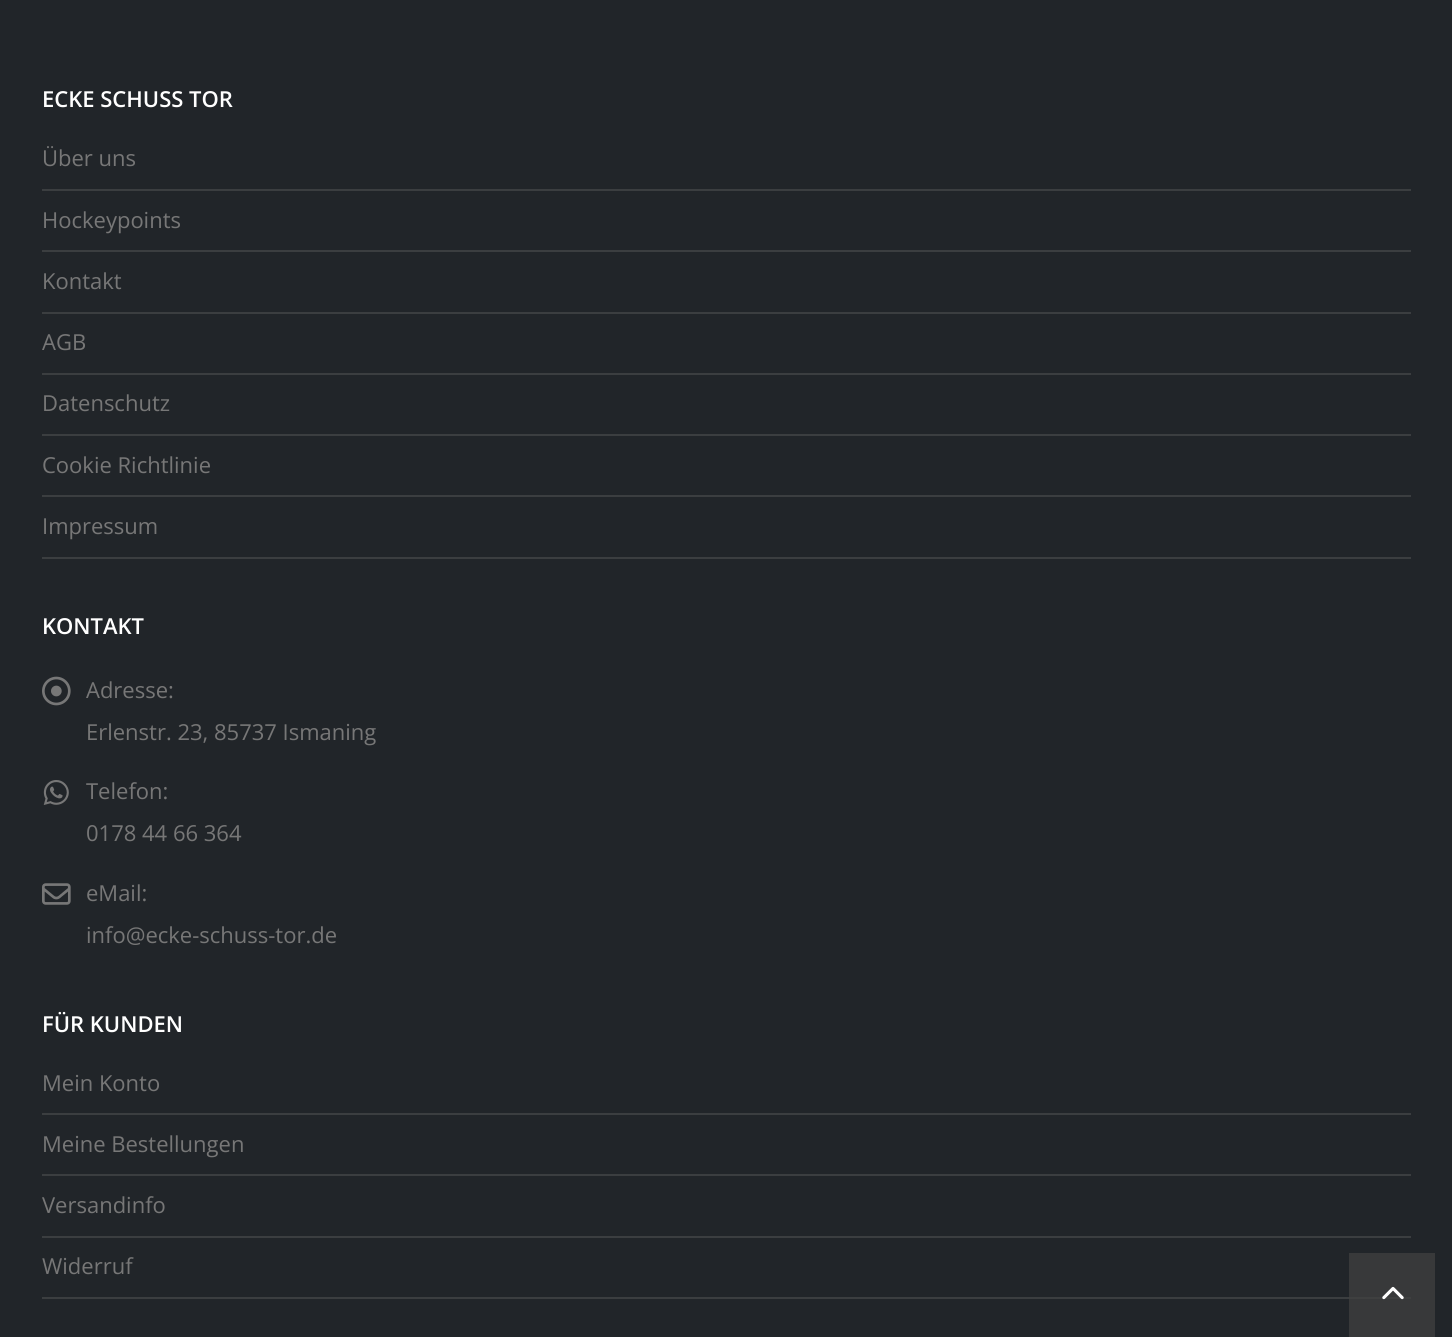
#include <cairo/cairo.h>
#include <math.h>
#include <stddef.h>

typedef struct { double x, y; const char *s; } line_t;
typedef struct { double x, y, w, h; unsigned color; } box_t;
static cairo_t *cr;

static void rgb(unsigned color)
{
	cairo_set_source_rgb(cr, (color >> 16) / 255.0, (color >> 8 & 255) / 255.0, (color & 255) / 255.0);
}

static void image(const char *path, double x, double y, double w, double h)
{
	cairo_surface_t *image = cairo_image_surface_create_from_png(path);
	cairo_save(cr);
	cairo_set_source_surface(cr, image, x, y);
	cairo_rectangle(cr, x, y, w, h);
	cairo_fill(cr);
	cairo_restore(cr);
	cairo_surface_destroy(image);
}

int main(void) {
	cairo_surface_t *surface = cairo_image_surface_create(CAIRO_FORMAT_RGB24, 1452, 1337);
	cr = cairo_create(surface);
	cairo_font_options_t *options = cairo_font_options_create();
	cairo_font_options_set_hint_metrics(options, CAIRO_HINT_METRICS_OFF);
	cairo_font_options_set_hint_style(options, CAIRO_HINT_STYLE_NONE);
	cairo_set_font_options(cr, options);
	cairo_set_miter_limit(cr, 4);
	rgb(0x212529);
	cairo_paint(cr);
	{
		static const box_t items[] = {
			{1349, 1253, 86, 84, 0x38393a},
			{42, 557, 1369, 2, 0x3b3e40},
			{42, 189, 1369, 2, 0x3b3e40},
			{42, 250, 1369, 2, 0x3b3e40},
			{42, 312, 1369, 2, 0x3b3e40},
			{42, 373, 1369, 2, 0x3b3e40},
			{42, 434, 1369, 2, 0x3b3e40},
			{42, 495, 1369, 2, 0x3b3e40},
		};
		for (size_t i = 0; i < sizeof items / sizeof *items; i++) {
			rgb(items[i].color);
			cairo_rectangle(cr, items[i].x, items[i].y, items[i].w, items[i].h);
			cairo_fill(cr);
		}
	}
	image("img/1.png", 42, 676, 29, 30);
	image("img/2.png", 43, 780, 26, 25);
	image("img/3.png", 42, 883, 29, 22);
	{
		static const box_t items[] = {
			{42, 1297, 1307, 2, 0x3b3e40},
			{1349, 1297, 62, 2, 0x3f4040},
			{42, 1113, 1369, 2, 0x3b3e40},
			{42, 1174, 1369, 2, 0x3b3e40},
			{42, 1236, 1369, 2, 0x3b3e40},
		};
		for (size_t i = 0; i < sizeof items / sizeof *items; i++) {
			rgb(items[i].color);
			cairo_rectangle(cr, items[i].x, items[i].y, items[i].w, items[i].h);
			cairo_fill(cr);
		}
	}
	image("img/4.png", 1382, 1286, 22, 14);
	cairo_select_font_face(cr, "Open Sans SemiBold", CAIRO_FONT_SLANT_NORMAL, CAIRO_FONT_WEIGHT_NORMAL);
	cairo_set_font_size(cr, 22);
	rgb(0xffffff);
	cairo_move_to(cr, 42, 107);
	cairo_show_text(cr, "ECKE SCHUSS TOR");
	cairo_select_font_face(cr, "Open Sans", CAIRO_FONT_SLANT_NORMAL, CAIRO_FONT_WEIGHT_NORMAL);
	rgb(0x777777);
	{
		static const line_t items[] = {
			{42, 166, "Über uns"},
			{42, 228, "Hockeypoints"},
			{42, 289, "Kontakt"},
			{42, 350, "AGB"},
			{42, 411, "Datenschutz"},
			{42, 473, "Cookie Richtlinie"},
			{42, 534, "Impressum"},
		};
		for (size_t i = 0; i < sizeof items / sizeof *items; i++) {
			cairo_move_to(cr, items[i].x, items[i].y);
			cairo_show_text(cr, items[i].s);
		}
	}
	cairo_select_font_face(cr, "Open Sans SemiBold", CAIRO_FONT_SLANT_NORMAL, CAIRO_FONT_WEIGHT_NORMAL);
	rgb(0xffffff);
	cairo_move_to(cr, 42, 634);
	cairo_show_text(cr, "KONTAKT");
	cairo_select_font_face(cr, "Open Sans", CAIRO_FONT_SLANT_NORMAL, CAIRO_FONT_WEIGHT_NORMAL);
	rgb(0x777777);
	{
		static const line_t items[] = {
			{86, 698, "Adresse:"},
			{86, 740, "Erlenstr. 23, 85737 Ismaning"},
			{86, 799, "Telefon:"},
			{86, 841, "0178 44 66 364"},
			{86, 901, "eMail:"},
			{86, 943, "info@ecke-schuss-tor.de"},
		};
		for (size_t i = 0; i < sizeof items / sizeof *items; i++) {
			cairo_move_to(cr, items[i].x, items[i].y);
			cairo_show_text(cr, items[i].s);
		}
	}
	cairo_select_font_face(cr, "Open Sans SemiBold", CAIRO_FONT_SLANT_NORMAL, CAIRO_FONT_WEIGHT_NORMAL);
	rgb(0xffffff);
	cairo_move_to(cr, 42, 1032);
	cairo_show_text(cr, "FÜR KUNDEN");
	cairo_select_font_face(cr, "Open Sans", CAIRO_FONT_SLANT_NORMAL, CAIRO_FONT_WEIGHT_NORMAL);
	rgb(0x777777);
	{
		static const line_t items[] = {
			{42, 1091, "Mein Konto"},
			{42, 1152, "Meine Bestellungen"},
			{42, 1213, "Versandinfo"},
			{42, 1274, "Widerruf"},
		};
		for (size_t i = 0; i < sizeof items / sizeof *items; i++) {
			cairo_move_to(cr, items[i].x, items[i].y);
			cairo_show_text(cr, items[i].s);
		}
	}
	cairo_surface_write_to_png(surface, "page.png");
	cairo_font_options_destroy(options);
	cairo_destroy(cr);
	cairo_surface_destroy(surface);
	return 0;
}
